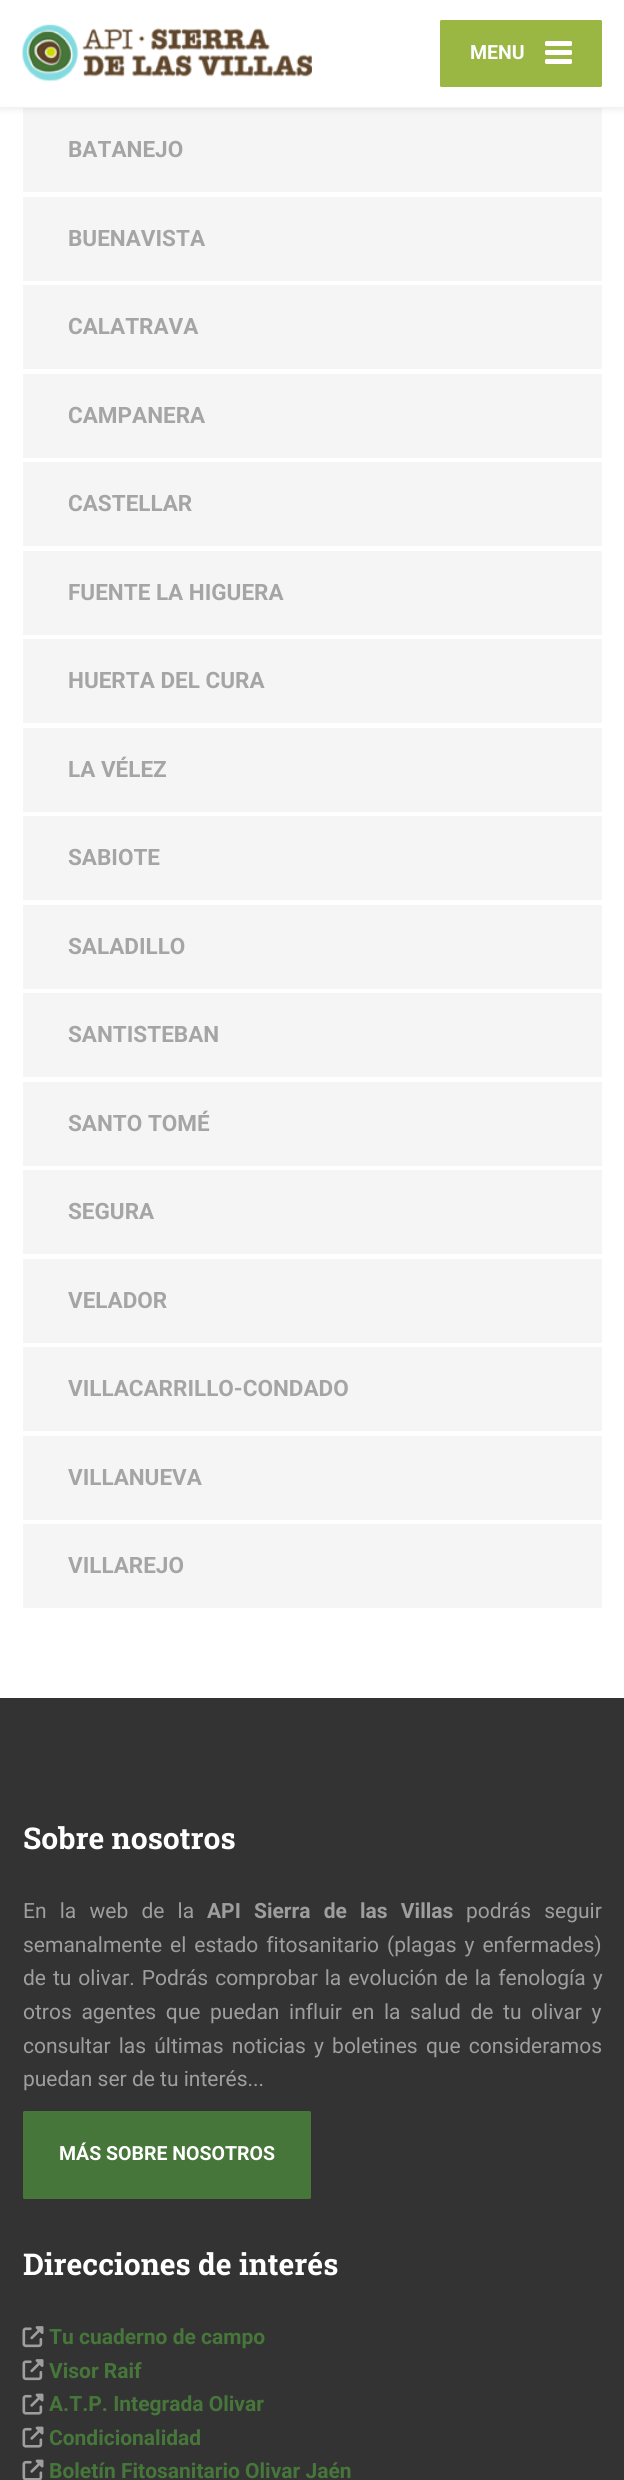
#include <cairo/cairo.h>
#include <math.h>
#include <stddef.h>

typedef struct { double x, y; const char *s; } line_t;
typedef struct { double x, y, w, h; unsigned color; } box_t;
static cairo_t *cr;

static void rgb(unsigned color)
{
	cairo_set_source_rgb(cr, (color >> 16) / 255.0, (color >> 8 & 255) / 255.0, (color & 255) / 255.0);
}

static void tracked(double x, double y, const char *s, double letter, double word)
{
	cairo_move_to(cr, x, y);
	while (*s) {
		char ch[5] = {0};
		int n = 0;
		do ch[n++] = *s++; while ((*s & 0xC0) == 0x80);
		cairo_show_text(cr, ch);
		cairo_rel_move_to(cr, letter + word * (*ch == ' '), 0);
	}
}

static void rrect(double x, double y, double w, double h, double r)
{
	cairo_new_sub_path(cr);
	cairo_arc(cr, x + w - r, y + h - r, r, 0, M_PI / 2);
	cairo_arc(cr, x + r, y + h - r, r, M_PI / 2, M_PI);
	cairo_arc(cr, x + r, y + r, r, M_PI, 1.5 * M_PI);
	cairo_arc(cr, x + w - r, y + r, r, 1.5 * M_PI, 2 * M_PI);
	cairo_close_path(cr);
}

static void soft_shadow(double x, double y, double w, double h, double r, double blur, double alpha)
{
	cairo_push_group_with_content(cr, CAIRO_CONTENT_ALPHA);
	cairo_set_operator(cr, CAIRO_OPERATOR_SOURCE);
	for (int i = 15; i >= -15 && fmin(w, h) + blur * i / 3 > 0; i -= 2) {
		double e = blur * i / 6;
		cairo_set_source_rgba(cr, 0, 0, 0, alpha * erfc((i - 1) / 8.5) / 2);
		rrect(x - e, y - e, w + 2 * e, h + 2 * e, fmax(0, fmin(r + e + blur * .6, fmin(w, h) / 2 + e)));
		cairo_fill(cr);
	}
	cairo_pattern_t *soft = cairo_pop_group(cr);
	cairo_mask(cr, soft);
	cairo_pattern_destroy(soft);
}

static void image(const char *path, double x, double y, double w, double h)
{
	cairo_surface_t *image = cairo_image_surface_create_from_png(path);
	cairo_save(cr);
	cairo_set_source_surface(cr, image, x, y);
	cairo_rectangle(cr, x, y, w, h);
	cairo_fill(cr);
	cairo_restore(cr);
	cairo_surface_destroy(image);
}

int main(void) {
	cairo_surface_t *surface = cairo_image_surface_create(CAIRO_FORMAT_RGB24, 624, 2480);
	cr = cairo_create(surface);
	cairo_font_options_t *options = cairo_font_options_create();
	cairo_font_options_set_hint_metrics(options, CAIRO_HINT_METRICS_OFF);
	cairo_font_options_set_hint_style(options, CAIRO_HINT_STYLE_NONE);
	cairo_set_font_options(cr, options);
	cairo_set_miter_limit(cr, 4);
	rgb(0xffffff);
	cairo_paint(cr);
	rgb(0xf5f5f5);
	cairo_rectangle(cr, 23, 108, 579, 84);
	cairo_fill(cr);
	rgb(0x000000);
	soft_shadow(0, 2, 624, 106, 0, 4.5, 0.1);
	rgb(0xffffff);
	cairo_rectangle(cr, 0, 0, 624, 107);
	cairo_fill(cr);
	image("img/1.png", 22, 24, 290, 58);
	rgb(0x9ab643);
	rrect(440, 20, 162, 67, 1.5);
	cairo_fill(cr);
	rgb(0xffffff);
	rrect(545, 41, 27, 5, 1.5);
	cairo_fill(cr);
	rrect(545, 50, 27, 5, 1.5);
	cairo_fill(cr);
	rrect(545, 59, 27, 5, 1.5);
	cairo_fill(cr);
	{
		static const box_t items[] = {
			{23, 197, 579, 84, 0xf5f5f5},
			{23, 285, 579, 84, 0xf5f5f5},
			{23, 374, 579, 84, 0xf5f5f5},
			{23, 462, 579, 84, 0xf5f5f5},
			{23, 551, 579, 84, 0xf5f5f5},
			{23, 639, 579, 84, 0xf5f5f5},
			{23, 728, 579, 84, 0xf5f5f5},
			{23, 816, 579, 84, 0xf5f5f5},
			{23, 905, 579, 84, 0xf5f5f5},
			{23, 993, 579, 84, 0xf5f5f5},
			{23, 1082, 579, 84, 0xf5f5f5},
			{23, 1170, 579, 84, 0xf5f5f5},
			{23, 1259, 579, 84, 0xf5f5f5},
			{23, 1347, 579, 84, 0xf5f5f5},
			{23, 1436, 579, 84, 0xf5f5f5},
			{23, 1524, 579, 84, 0xf5f5f5},
			{0, 1698, 624, 782, 0x333333},
		};
		for (size_t i = 0; i < sizeof items / sizeof *items; i++) {
			rgb(items[i].color);
			cairo_rectangle(cr, items[i].x, items[i].y, items[i].w, items[i].h);
			cairo_fill(cr);
		}
	}
	rgb(0x46763a);
	rrect(23, 2111, 288, 88, 1.5);
	cairo_fill(cr);
	image("img/2.png", 22, 2326, 22, 22);
	image("img/2.png", 22, 2359, 22, 22);
	image("img/3.png", 22, 2393, 22, 22);
	image("img/3.png", 22, 2426, 22, 22);
	image("img/4.png", 22, 2459, 22, 21);
	cairo_select_font_face(cr, "Roboto", CAIRO_FONT_SLANT_NORMAL, CAIRO_FONT_WEIGHT_BOLD);
	cairo_set_font_size(cr, 19.5);
	rgb(0xffffff);
	cairo_move_to(cr, 470, 59);
	cairo_show_text(cr, "MENU");
	cairo_set_font_size(cr, 22.5);
	rgb(0xa5a5a5);
	{
		static const line_t items[] = {
			{68, 157, "BATANEJO"},
			{68, 246, "BUENAVISTA"},
			{68, 334, "CALATRAVA"},
			{68, 423, "CAMPANERA"},
			{68, 511, "CASTELLAR"},
			{68, 600, "FUENTE LA HIGUERA"},
			{68, 688, "HUERTA DEL CURA"},
			{68, 777, "LA VÉLEZ"},
			{68, 865, "SABIOTE"},
			{68, 954, "SALADILLO"},
			{68, 1042, "SANTISTEBAN"},
			{68, 1131, "SANTO TOMÉ"},
			{68, 1219, "SEGURA"},
			{68, 1308, "VELADOR"},
			{68, 1396, "VILLACARRILLO-CONDADO"},
			{68, 1485, "VILLANUEVA"},
			{68, 1573, "VILLAREJO"},
		};
		for (size_t i = 0; i < sizeof items / sizeof *items; i++) {
			cairo_move_to(cr, items[i].x, items[i].y);
			cairo_show_text(cr, items[i].s);
		}
	}
	cairo_select_font_face(cr, "Roboto Slab", CAIRO_FONT_SLANT_NORMAL, CAIRO_FONT_WEIGHT_BOLD);
	cairo_set_font_size(cr, 30);
	rgb(0xffffff);
	cairo_move_to(cr, 23, 1849);
	cairo_show_text(cr, "Sobre nosotros");
	cairo_select_font_face(cr, "Roboto", CAIRO_FONT_SLANT_NORMAL, CAIRO_FONT_WEIGHT_NORMAL);
	cairo_set_font_size(cr, 21);
	rgb(0x9e9e9e);
	tracked(23, 1918, "En la web de la", 0, 8);
	cairo_select_font_face(cr, "Roboto", CAIRO_FONT_SLANT_NORMAL, CAIRO_FONT_WEIGHT_BOLD);
	tracked(207, 1918, "API Sierra de las Villas", 0, 8);
	cairo_select_font_face(cr, "Roboto", CAIRO_FONT_SLANT_NORMAL, CAIRO_FONT_WEIGHT_NORMAL);
	tracked(466, 1918, "podrás seguir", 0, 8);
	tracked(23, 1952, "semanalmente el estado fitosanitario (plagas y enfermades)", 0, 2.75);
	tracked(23, 1985, "de tu olivar. Podrás comprobar la evolución de la fenología y", 0, 1.75);
	tracked(23, 2019, "otros agentes que puedan influir en la salud de tu olivar y", 0, 4.4);
	tracked(23, 2053, "consultar las últimas noticias y boletines que consideramos", 0, 3);
	cairo_move_to(cr, 23, 2086);
	cairo_show_text(cr, "puedan ser de tu interés...");
	cairo_select_font_face(cr, "Roboto", CAIRO_FONT_SLANT_NORMAL, CAIRO_FONT_WEIGHT_BOLD);
	cairo_set_font_size(cr, 19.5);
	rgb(0xffffff);
	cairo_move_to(cr, 59, 2160);
	cairo_show_text(cr, "MÁS SOBRE NOSOTROS");
	cairo_select_font_face(cr, "Roboto Slab", CAIRO_FONT_SLANT_NORMAL, CAIRO_FONT_WEIGHT_BOLD);
	cairo_set_font_size(cr, 30);
	cairo_move_to(cr, 23, 2275);
	cairo_show_text(cr, "Direcciones de interés");
	cairo_select_font_face(cr, "Roboto", CAIRO_FONT_SLANT_NORMAL, CAIRO_FONT_WEIGHT_BOLD);
	cairo_set_font_size(cr, 21);
	rgb(0x46763a);
	{
		static const line_t items[] = {
			{49, 2344, "Tu cuaderno de campo"},
			{49, 2378, "Visor Raif"},
			{49, 2411, "A.T.P. Integrada Olivar"},
			{49, 2445, "Condicionalidad"},
			{49, 2478, "Boletín Fitosanitario Olivar Jaén"},
		};
		for (size_t i = 0; i < sizeof items / sizeof *items; i++) {
			cairo_move_to(cr, items[i].x, items[i].y);
			cairo_show_text(cr, items[i].s);
		}
	}
	cairo_surface_write_to_png(surface, "page.png");
	cairo_font_options_destroy(options);
	cairo_destroy(cr);
	cairo_surface_destroy(surface);
	return 0;
}
